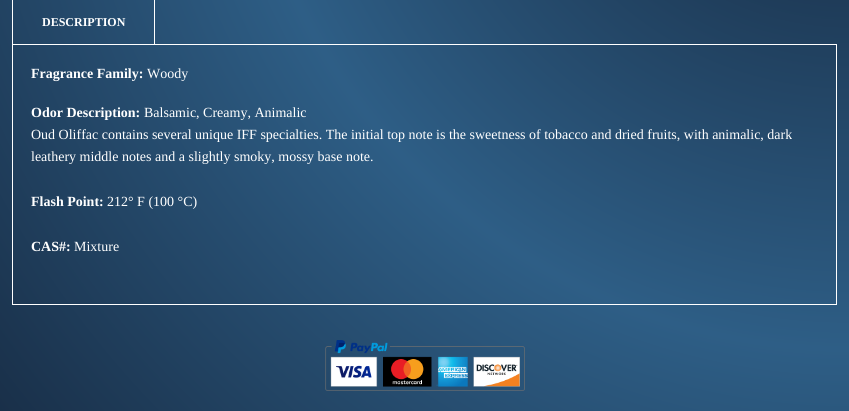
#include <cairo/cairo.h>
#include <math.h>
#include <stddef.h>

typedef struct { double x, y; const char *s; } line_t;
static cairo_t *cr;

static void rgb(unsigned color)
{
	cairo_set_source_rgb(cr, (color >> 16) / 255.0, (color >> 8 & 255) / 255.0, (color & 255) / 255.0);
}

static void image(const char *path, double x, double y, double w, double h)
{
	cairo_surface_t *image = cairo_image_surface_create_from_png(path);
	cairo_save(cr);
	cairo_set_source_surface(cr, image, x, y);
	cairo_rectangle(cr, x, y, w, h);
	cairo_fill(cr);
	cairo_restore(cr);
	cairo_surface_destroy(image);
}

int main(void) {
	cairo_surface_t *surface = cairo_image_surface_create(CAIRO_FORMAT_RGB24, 849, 411);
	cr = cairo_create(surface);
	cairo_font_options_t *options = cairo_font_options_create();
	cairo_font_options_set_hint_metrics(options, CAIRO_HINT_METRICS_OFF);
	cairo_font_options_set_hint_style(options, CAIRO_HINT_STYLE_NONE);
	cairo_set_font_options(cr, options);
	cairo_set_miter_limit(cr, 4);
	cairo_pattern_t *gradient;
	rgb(0xffffff);
	cairo_paint(cr);
	gradient = cairo_pattern_create_radial(849, -263, 0, 849, -263, 1224);
	cairo_pattern_add_color_stop_rgba(gradient, 0, 0.075, 0.133, 0.216, 1);
	cairo_pattern_add_color_stop_rgba(gradient, 0.5, 0.18, 0.369, 0.525, 1);
	cairo_pattern_add_color_stop_rgba(gradient, 1, 0.075, 0.133, 0.216, 1);
	cairo_set_source(cr, gradient);
	cairo_pattern_destroy(gradient);
	cairo_rectangle(cr, 0, 0, 849, 411);
	cairo_fill(cr);
	cairo_rectangle(cr, 12.5, -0.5, 142, 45);
	rgb(0xffffff);
	cairo_set_line_width(cr, 1);
	cairo_stroke(cr);
	cairo_rectangle(cr, 12.5, 44.5, 824, 260);
	cairo_stroke(cr);
	image("img/1.png", 325, 340, 200, 51);
	cairo_select_font_face(cr, "Liberation Serif", CAIRO_FONT_SLANT_NORMAL, CAIRO_FONT_WEIGHT_BOLD);
	cairo_set_font_size(cr, 12);
	cairo_move_to(cr, 42, 26);
	cairo_show_text(cr, "DESCRIPTION");
	cairo_set_font_size(cr, 14);
	cairo_move_to(cr, 31, 78);
	cairo_show_text(cr, "Fragrance Family:");
	cairo_select_font_face(cr, "Liberation Serif", CAIRO_FONT_SLANT_NORMAL, CAIRO_FONT_WEIGHT_NORMAL);
	cairo_move_to(cr, 147, 78);
	cairo_show_text(cr, "Woody");
	cairo_select_font_face(cr, "Liberation Serif", CAIRO_FONT_SLANT_NORMAL, CAIRO_FONT_WEIGHT_BOLD);
	cairo_move_to(cr, 31, 117);
	cairo_show_text(cr, "Odor Description:");
	cairo_select_font_face(cr, "Liberation Serif", CAIRO_FONT_SLANT_NORMAL, CAIRO_FONT_WEIGHT_NORMAL);
	{
		static const line_t items[] = {
			{144, 117, "Balsamic, Creamy, Animalic"},
			{31, 139, "Oud Oliffac contains several unique IFF specialties. The initial top note is the sweetness of tobacco and dried fruits, with animalic, dark"},
			{31, 161, "leathery middle notes and a slightly smoky, mossy base note."},
		};
		for (size_t i = 0; i < sizeof items / sizeof *items; i++) {
			cairo_move_to(cr, items[i].x, items[i].y);
			cairo_show_text(cr, items[i].s);
		}
	}
	cairo_select_font_face(cr, "Liberation Serif", CAIRO_FONT_SLANT_NORMAL, CAIRO_FONT_WEIGHT_BOLD);
	cairo_move_to(cr, 31, 206);
	cairo_show_text(cr, "Flash Point:");
	cairo_select_font_face(cr, "Liberation Serif", CAIRO_FONT_SLANT_NORMAL, CAIRO_FONT_WEIGHT_NORMAL);
	cairo_move_to(cr, 107, 206);
	cairo_show_text(cr, "212° F (100 °C)");
	cairo_select_font_face(cr, "Liberation Serif", CAIRO_FONT_SLANT_NORMAL, CAIRO_FONT_WEIGHT_BOLD);
	cairo_move_to(cr, 31, 251);
	cairo_show_text(cr, "CAS#:");
	cairo_select_font_face(cr, "Liberation Serif", CAIRO_FONT_SLANT_NORMAL, CAIRO_FONT_WEIGHT_NORMAL);
	cairo_move_to(cr, 74, 251);
	cairo_show_text(cr, "Mixture");
	cairo_surface_write_to_png(surface, "page.png");
	cairo_font_options_destroy(options);
	cairo_destroy(cr);
	cairo_surface_destroy(surface);
	return 0;
}
